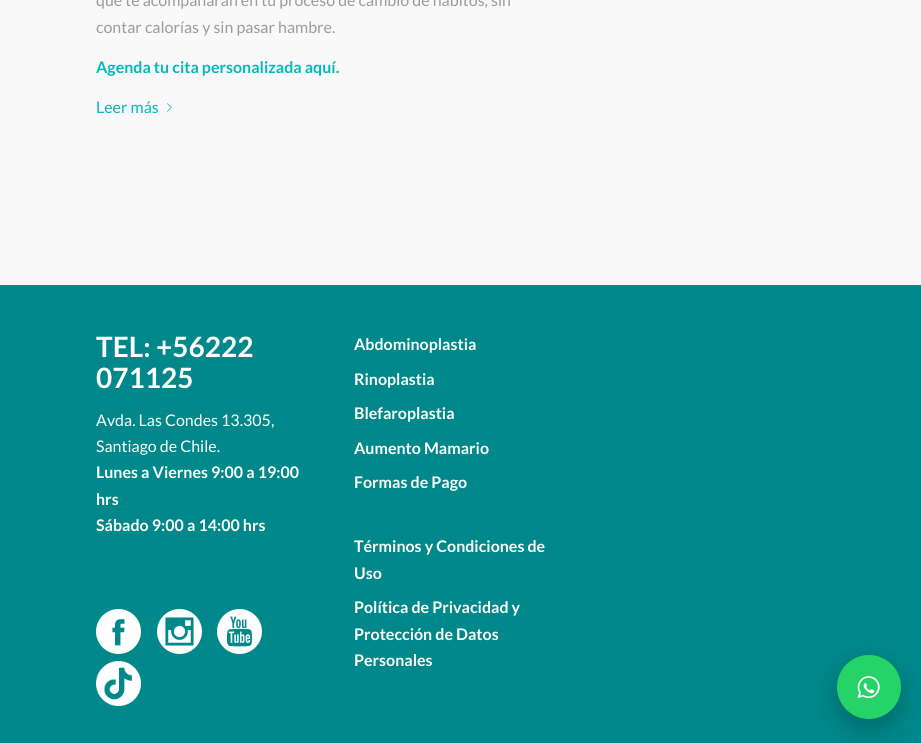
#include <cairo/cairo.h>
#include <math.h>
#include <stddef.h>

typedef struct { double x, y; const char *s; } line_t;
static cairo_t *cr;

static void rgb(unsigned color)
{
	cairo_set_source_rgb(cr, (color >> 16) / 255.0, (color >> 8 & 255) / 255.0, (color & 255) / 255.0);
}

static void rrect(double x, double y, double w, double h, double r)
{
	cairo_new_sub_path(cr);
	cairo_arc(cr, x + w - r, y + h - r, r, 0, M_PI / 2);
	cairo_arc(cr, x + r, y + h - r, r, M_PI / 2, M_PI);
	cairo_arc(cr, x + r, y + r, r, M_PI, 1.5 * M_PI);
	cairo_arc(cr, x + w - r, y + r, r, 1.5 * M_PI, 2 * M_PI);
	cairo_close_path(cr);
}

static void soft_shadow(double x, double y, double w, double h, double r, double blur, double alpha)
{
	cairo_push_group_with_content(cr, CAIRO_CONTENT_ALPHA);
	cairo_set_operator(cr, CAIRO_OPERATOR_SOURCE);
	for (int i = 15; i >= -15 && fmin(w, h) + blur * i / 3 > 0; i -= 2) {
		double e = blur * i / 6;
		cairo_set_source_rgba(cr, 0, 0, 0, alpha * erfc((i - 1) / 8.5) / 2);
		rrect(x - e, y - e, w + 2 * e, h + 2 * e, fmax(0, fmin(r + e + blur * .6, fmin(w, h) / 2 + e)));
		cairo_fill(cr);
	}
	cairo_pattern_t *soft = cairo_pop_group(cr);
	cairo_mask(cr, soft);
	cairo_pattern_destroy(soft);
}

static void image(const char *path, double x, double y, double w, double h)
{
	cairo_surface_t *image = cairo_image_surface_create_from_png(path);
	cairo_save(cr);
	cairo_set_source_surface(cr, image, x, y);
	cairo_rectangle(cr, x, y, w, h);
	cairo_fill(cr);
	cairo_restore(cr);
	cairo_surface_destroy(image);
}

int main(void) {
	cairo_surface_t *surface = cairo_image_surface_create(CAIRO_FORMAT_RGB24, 921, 743);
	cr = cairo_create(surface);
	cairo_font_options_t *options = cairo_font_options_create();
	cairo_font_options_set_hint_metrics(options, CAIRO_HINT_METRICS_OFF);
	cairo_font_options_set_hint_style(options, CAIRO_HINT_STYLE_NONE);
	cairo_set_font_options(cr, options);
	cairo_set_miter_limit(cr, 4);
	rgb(0xf9f9f9);
	cairo_paint(cr);
	image("img/1.png", 167, 103, 5, 9);
	rgb(0x00888a);
	cairo_rectangle(cr, 0, 285, 921, 458);
	cairo_fill(cr);
	image("img/2.png", 96, 609, 45, 45);
	image("img/3.png", 157, 609, 45, 45);
	image("img/4.png", 217, 609, 45, 45);
	image("img/5.png", 96, 661, 45, 45);
	rgb(0x000000);
	soft_shadow(837, 665, 64, 64, 32, 12.5, 0.22);
	rgb(0x25d366);
	cairo_arc(cr, 869, 687, 32, 0, 2 * M_PI);
	cairo_fill(cr);
	image("img/6.png", 857, 676, 23, 23);
	cairo_select_font_face(cr, "Lato", CAIRO_FONT_SLANT_NORMAL, CAIRO_FONT_WEIGHT_NORMAL);
	cairo_set_font_size(cr, 16);
	rgb(0x9c9c9c);
	cairo_move_to(cr, 96, 6);
	cairo_show_text(cr, "que te acompañarán en tu proceso de cambio de hábitos, sin");
	cairo_move_to(cr, 96, 33);
	cairo_show_text(cr, "contar calorías y sin pasar hambre.");
	cairo_select_font_face(cr, "Lato", CAIRO_FONT_SLANT_NORMAL, CAIRO_FONT_WEIGHT_BOLD);
	rgb(0x00babd);
	cairo_move_to(cr, 96, 73);
	cairo_show_text(cr, "Agenda tu cita personalizada aquí.");
	cairo_select_font_face(cr, "Lato", CAIRO_FONT_SLANT_NORMAL, CAIRO_FONT_WEIGHT_NORMAL);
	cairo_move_to(cr, 96, 113);
	cairo_show_text(cr, "Leer más");
	cairo_select_font_face(cr, "Lato", CAIRO_FONT_SLANT_NORMAL, CAIRO_FONT_WEIGHT_BOLD);
	cairo_set_font_size(cr, 28);
	rgb(0xffffff);
	cairo_move_to(cr, 96, 357);
	cairo_show_text(cr, "TEL: +56222");
	cairo_move_to(cr, 96, 388);
	cairo_show_text(cr, "071125");
	cairo_select_font_face(cr, "Lato", CAIRO_FONT_SLANT_NORMAL, CAIRO_FONT_WEIGHT_NORMAL);
	cairo_set_font_size(cr, 16);
	cairo_move_to(cr, 96, 426);
	cairo_show_text(cr, "Avda. Las Condes 13.305,");
	cairo_move_to(cr, 96, 452);
	cairo_show_text(cr, "Santiago de Chile.");
	cairo_select_font_face(cr, "Lato", CAIRO_FONT_SLANT_NORMAL, CAIRO_FONT_WEIGHT_BOLD);
	{
		static const line_t items[] = {
			{96, 478, "Lunes a Viernes 9:00 a 19:00"},
			{96, 505, "hrs"},
			{96, 531, "Sábado 9:00 a 14:00 hrs"},
			{354, 350, "Abdominoplastia"},
			{354, 385, "Rinoplastia"},
			{354, 419, "Blefaroplastia"},
			{354, 454, "Aumento Mamario"},
			{354, 488, "Formas de Pago"},
			{354, 552, "Términos y Condiciones de"},
			{354, 579, "Uso"},
			{354, 613, "Política de Privacidad y"},
			{354, 640, "Protección de Datos"},
			{354, 666, "Personales"},
		};
		for (size_t i = 0; i < sizeof items / sizeof *items; i++) {
			cairo_move_to(cr, items[i].x, items[i].y);
			cairo_show_text(cr, items[i].s);
		}
	}
	cairo_surface_write_to_png(surface, "page.png");
	cairo_font_options_destroy(options);
	cairo_destroy(cr);
	cairo_surface_destroy(surface);
	return 0;
}
